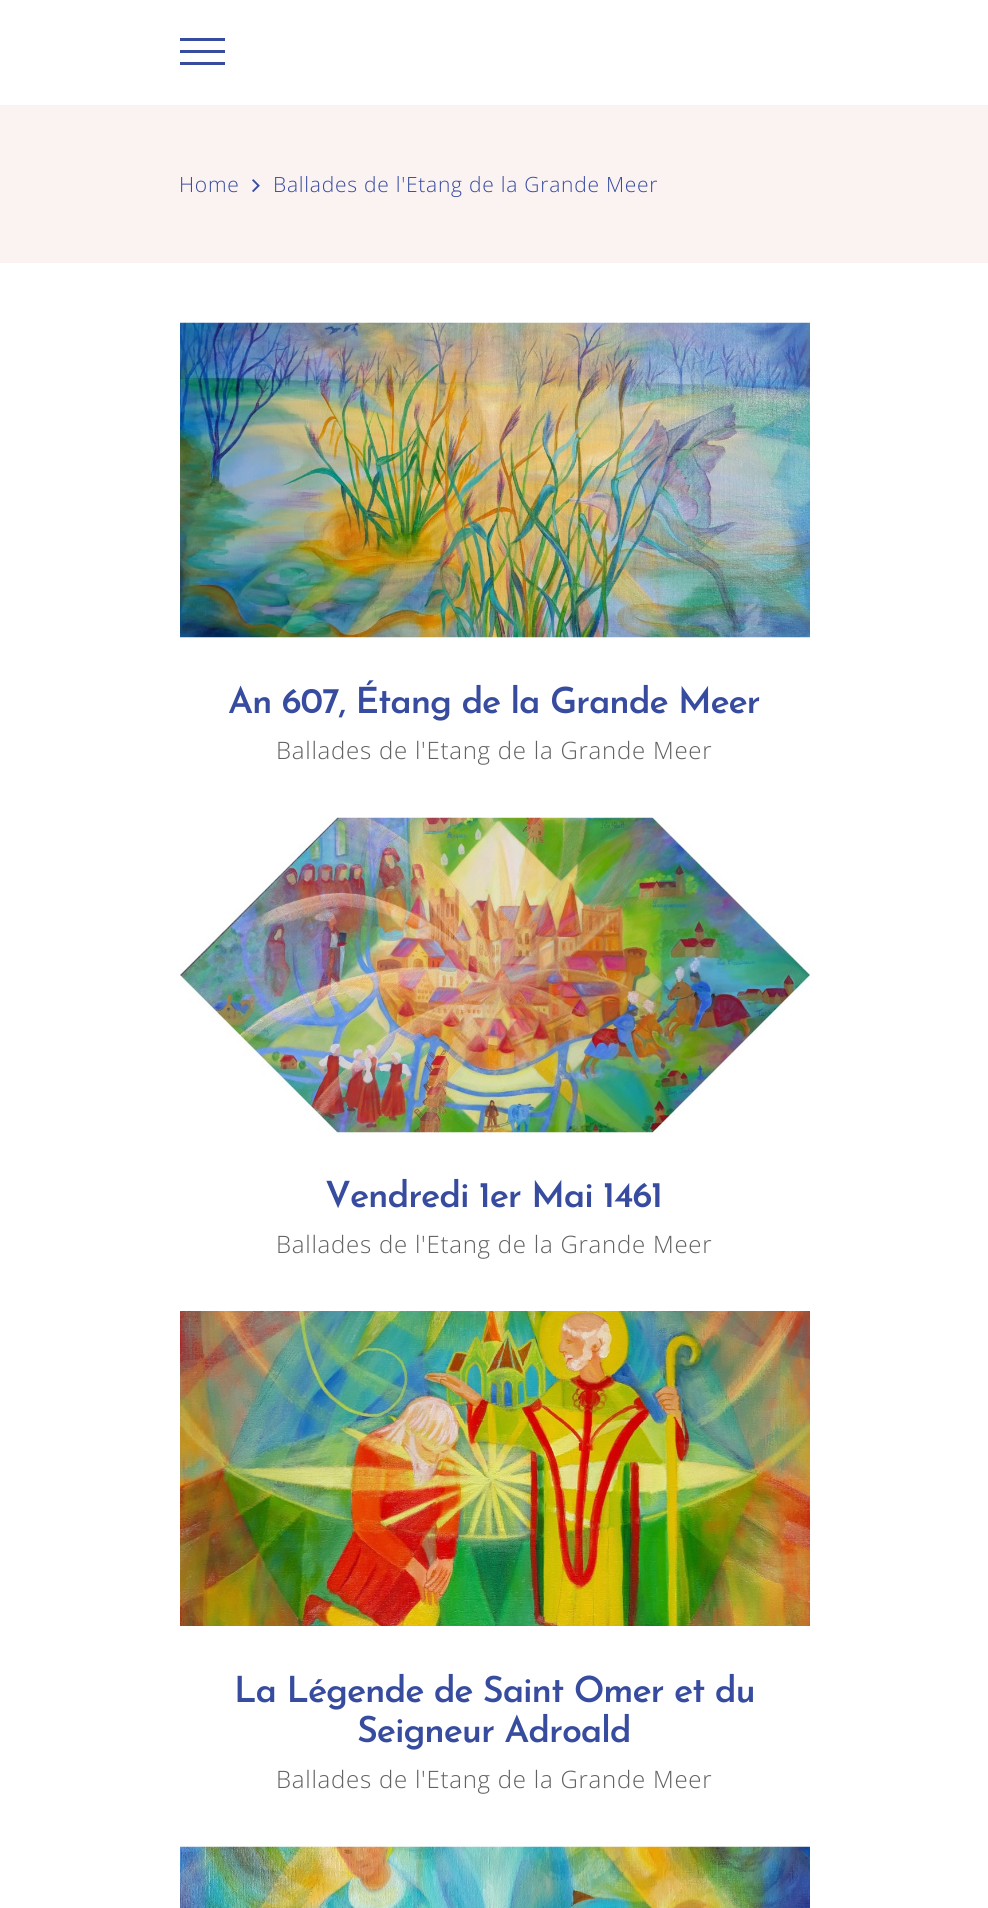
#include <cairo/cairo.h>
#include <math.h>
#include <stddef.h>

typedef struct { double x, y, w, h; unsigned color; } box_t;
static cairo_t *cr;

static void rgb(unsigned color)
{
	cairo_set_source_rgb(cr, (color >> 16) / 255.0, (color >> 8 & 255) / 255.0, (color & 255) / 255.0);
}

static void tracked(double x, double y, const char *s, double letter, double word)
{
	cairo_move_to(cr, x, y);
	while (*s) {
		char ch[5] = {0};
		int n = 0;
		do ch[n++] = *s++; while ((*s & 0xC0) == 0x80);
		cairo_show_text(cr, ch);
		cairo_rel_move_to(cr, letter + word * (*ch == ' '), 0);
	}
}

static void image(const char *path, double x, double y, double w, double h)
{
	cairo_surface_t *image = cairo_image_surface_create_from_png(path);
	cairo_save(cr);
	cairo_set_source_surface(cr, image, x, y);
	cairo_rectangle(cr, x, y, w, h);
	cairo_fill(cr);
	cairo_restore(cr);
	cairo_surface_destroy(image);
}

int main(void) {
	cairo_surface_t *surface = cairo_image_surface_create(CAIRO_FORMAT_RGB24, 988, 1908);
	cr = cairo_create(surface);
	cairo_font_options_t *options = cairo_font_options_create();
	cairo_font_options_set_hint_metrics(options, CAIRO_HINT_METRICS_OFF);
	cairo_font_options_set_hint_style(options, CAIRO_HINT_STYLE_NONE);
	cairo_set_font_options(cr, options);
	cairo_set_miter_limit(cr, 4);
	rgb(0xffffff);
	cairo_paint(cr);
	{
		static const box_t items[] = {
			{180, 38, 45, 3, 0x374c9f},
			{180, 50, 45, 3, 0x374c9f},
			{180, 62, 45, 3, 0x374c9f},
			{0, 105, 988, 158, 0xfbf2f2},
		};
		for (size_t i = 0; i < sizeof items / sizeof *items; i++) {
			rgb(items[i].color);
			cairo_rectangle(cr, items[i].x, items[i].y, items[i].w, items[i].h);
			cairo_fill(cr);
		}
	}
	image("img/1.png", 252, 179, 8, 14);
	image("img/2.png", 180, 322, 630, 316);
	image("img/3.png", 180, 817, 630, 316);
	image("img/4.png", 180, 1311, 630, 315);
	image("img/5.png", 180, 1846, 630, 62);
	cairo_select_font_face(cr, "Open Sans Light", CAIRO_FONT_SLANT_NORMAL, CAIRO_FONT_WEIGHT_NORMAL);
	cairo_set_font_size(cr, 21);
	rgb(0x374c9f);
	tracked(179, 192, "Home", 0.75, 0);
	tracked(273, 192, "Ballades de l'Etang de la Grande Meer", 0.75, 0);
	cairo_select_font_face(cr, "Josefin Sans SemiBold", CAIRO_FONT_SLANT_NORMAL, CAIRO_FONT_WEIGHT_NORMAL);
	cairo_set_font_size(cr, 36);
	tracked(228, 713, "An 607, Étang de la Grande Meer", -1.1, 0);
	cairo_select_font_face(cr, "Open Sans Light", CAIRO_FONT_SLANT_NORMAL, CAIRO_FONT_WEIGHT_NORMAL);
	cairo_set_font_size(cr, 24);
	rgb(0x616161);
	tracked(276, 759, "Ballades de l'Etang de la Grande Meer", 0.75, 0);
	cairo_select_font_face(cr, "Josefin Sans SemiBold", CAIRO_FONT_SLANT_NORMAL, CAIRO_FONT_WEIGHT_NORMAL);
	cairo_set_font_size(cr, 36);
	rgb(0x374c9f);
	tracked(325, 1207, "Vendredi 1er Mai 1461", -1.1, 0);
	cairo_select_font_face(cr, "Open Sans Light", CAIRO_FONT_SLANT_NORMAL, CAIRO_FONT_WEIGHT_NORMAL);
	cairo_set_font_size(cr, 24);
	rgb(0x616161);
	tracked(276, 1253, "Ballades de l'Etang de la Grande Meer", 0.75, 0);
	cairo_select_font_face(cr, "Josefin Sans SemiBold", CAIRO_FONT_SLANT_NORMAL, CAIRO_FONT_WEIGHT_NORMAL);
	cairo_set_font_size(cr, 36);
	rgb(0x374c9f);
	tracked(234, 1702, "La Légende de Saint Omer et du", -1.1, 0);
	tracked(357, 1742, "Seigneur Adroald", -1.1, 0);
	cairo_select_font_face(cr, "Open Sans Light", CAIRO_FONT_SLANT_NORMAL, CAIRO_FONT_WEIGHT_NORMAL);
	cairo_set_font_size(cr, 24);
	rgb(0x616161);
	tracked(276, 1788, "Ballades de l'Etang de la Grande Meer", 0.75, 0);
	cairo_surface_write_to_png(surface, "page.png");
	cairo_font_options_destroy(options);
	cairo_destroy(cr);
	cairo_surface_destroy(surface);
	return 0;
}
